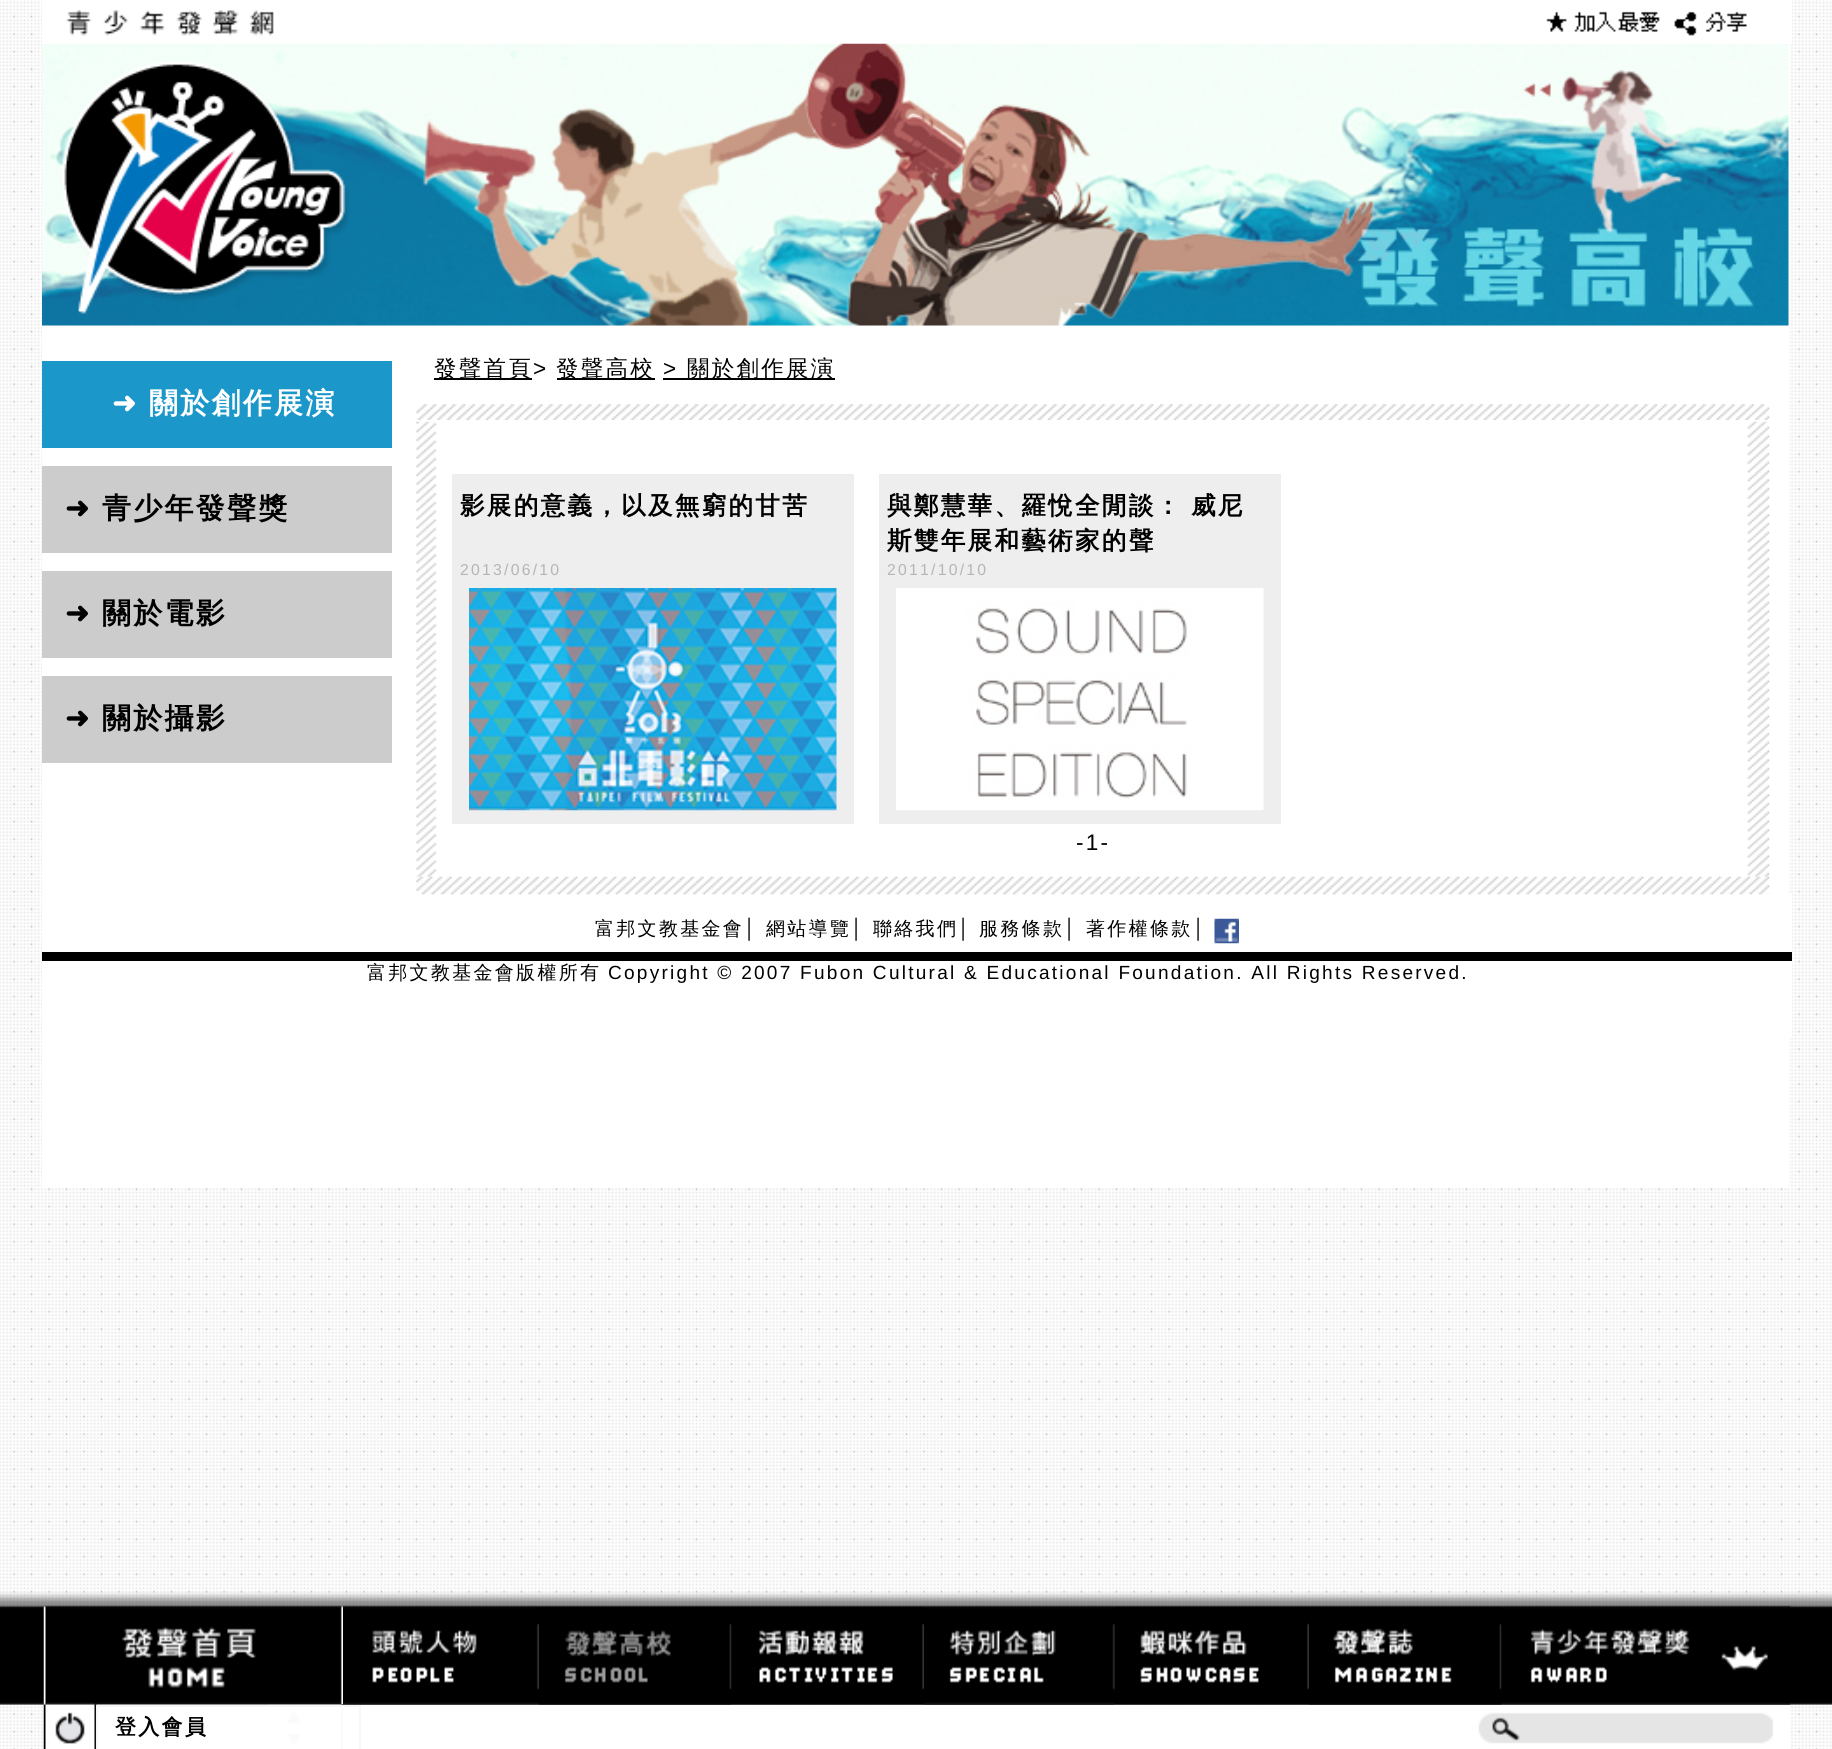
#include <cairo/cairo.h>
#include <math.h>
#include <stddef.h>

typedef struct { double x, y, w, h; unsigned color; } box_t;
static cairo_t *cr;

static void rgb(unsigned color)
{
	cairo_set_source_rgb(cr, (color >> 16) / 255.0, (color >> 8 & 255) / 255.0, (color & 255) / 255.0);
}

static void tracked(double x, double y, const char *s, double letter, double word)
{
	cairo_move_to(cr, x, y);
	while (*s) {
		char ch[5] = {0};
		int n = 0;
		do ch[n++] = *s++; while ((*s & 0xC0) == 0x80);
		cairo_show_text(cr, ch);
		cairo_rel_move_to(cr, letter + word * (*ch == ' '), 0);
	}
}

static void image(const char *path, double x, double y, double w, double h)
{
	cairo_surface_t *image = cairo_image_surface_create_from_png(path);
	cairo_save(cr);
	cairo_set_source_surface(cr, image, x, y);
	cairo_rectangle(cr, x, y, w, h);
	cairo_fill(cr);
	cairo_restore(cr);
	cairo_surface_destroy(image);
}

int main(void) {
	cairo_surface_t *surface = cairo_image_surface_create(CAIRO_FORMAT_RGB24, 1832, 1749);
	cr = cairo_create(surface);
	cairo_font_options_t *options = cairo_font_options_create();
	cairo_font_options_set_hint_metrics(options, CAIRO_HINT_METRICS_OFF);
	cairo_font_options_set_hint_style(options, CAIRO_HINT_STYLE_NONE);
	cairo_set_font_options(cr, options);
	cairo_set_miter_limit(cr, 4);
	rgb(0xffffff);
	cairo_paint(cr);
	image("img/1.png", 0, 0, 1832, 1749);
	rgb(0xffffff);
	cairo_rectangle(cr, 42, 0, 1750, 44);
	cairo_fill(cr);
	image("img/2.png", 66, 10, 208, 26);
	image("img/3.png", 1546, 11, 114, 21);
	image("img/4.png", 1674, 11, 73, 25);
	cairo_rectangle(cr, 42, 44, 1748, 282);
	cairo_fill(cr);
	image("img/6.png", 42, 43, 1747, 283);
	image("img/5.png", 62, 61, 288, 253);
	{
		static const box_t items[] = {
			{42, 327, 1747, 566, 0xffffff},
			{42, 361, 350, 87, 0x1b97ca},
			{42, 466, 350, 87, 0xcccccc},
			{42, 571, 350, 87, 0xcccccc},
			{42, 676, 350, 87, 0xcccccc},
			{434, 378, 98, 2, 0x000000},
			{557, 378, 98, 2, 0x000000},
			{663, 378, 172, 2, 0x000000},
		};
		for (size_t i = 0; i < sizeof items / sizeof *items; i++) {
			rgb(items[i].color);
			cairo_rectangle(cr, items[i].x, items[i].y, items[i].w, items[i].h);
			cairo_fill(cr);
		}
	}
	image("img/7.png", 416, 404, 1354, 16);
	image("img/8.png", 416, 421, 1354, 456);
	rgb(0xeeeeee);
	cairo_rectangle(cr, 452, 474, 402, 350);
	cairo_fill(cr);
	image("img/9.png", 469, 588, 368, 223);
	cairo_rectangle(cr, 879, 474, 402, 350);
	cairo_fill(cr);
	image("img/10.png", 896, 588, 368, 223);
	rgb(0xffffff);
	cairo_rectangle(cr, 42, 894, 1750, 144);
	cairo_fill(cr);
	image("img/11.png", 416, 876, 1354, 19);
	image("img/12.png", 1214, 918, 25, 26);
	rgb(0x000000);
	cairo_rectangle(cr, 42, 952, 1750, 9);
	cairo_fill(cr);
	rgb(0xffffff);
	cairo_rectangle(cr, 42, 1038, 1747, 150);
	cairo_fill(cr);
	image("img/13.png", 0, 1592, 1832, 113);
	image("img/14.png", 43, 1605, 300, 100);
	image("img/15.png", 343, 1605, 196, 100);
	image("img/16.png", 539, 1605, 193, 100);
	image("img/17.png", 731, 1605, 193, 100);
	image("img/18.png", 924, 1605, 191, 100);
	image("img/19.png", 1114, 1605, 195, 100);
	image("img/20.png", 1309, 1605, 193, 100);
	image("img/21.png", 1501, 1605, 290, 100);
	cairo_rectangle(cr, 343, 1706, 1447, 43);
	cairo_fill(cr);
	image("img/22.png", 43, 1703, 54, 46);
	image("img/23.png", 95, 1704, 248, 45);
	cairo_set_source_rgba(cr, 1, 1, 1, 0.98);
	cairo_rectangle(cr, 98, 1707, 245, 42);
	cairo_fill(cr);
	cairo_rectangle(cr, 97, 1706, 263, 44);
	rgb(0xf7f7f7);
	cairo_stroke(cr);
	image("img/24.png", 1478, 1712, 295, 32);
	cairo_select_font_face(cr, "DejaVu Sans", CAIRO_FONT_SLANT_NORMAL, CAIRO_FONT_WEIGHT_BOLD);
	cairo_set_font_size(cr, 29);
	rgb(0xffffff);
	tracked(112, 413, "➜", 2.25, 0);
	cairo_select_font_face(cr, "WenQuanYi Zen Hei", CAIRO_FONT_SLANT_NORMAL, CAIRO_FONT_WEIGHT_BOLD);
	tracked(149, 413, "關於創作展演", 2.25, 0);
	cairo_select_font_face(cr, "DejaVu Sans", CAIRO_FONT_SLANT_NORMAL, CAIRO_FONT_WEIGHT_BOLD);
	rgb(0x000000);
	tracked(65, 518, "➜", 2.25, 0);
	cairo_select_font_face(cr, "WenQuanYi Zen Hei", CAIRO_FONT_SLANT_NORMAL, CAIRO_FONT_WEIGHT_BOLD);
	tracked(102, 518, "青少年發聲獎", 2.25, 0);
	cairo_select_font_face(cr, "DejaVu Sans", CAIRO_FONT_SLANT_NORMAL, CAIRO_FONT_WEIGHT_BOLD);
	tracked(65, 623, "➜", 2.25, 0);
	cairo_select_font_face(cr, "WenQuanYi Zen Hei", CAIRO_FONT_SLANT_NORMAL, CAIRO_FONT_WEIGHT_BOLD);
	tracked(102, 623, "關於電影", 2.25, 0);
	cairo_select_font_face(cr, "DejaVu Sans", CAIRO_FONT_SLANT_NORMAL, CAIRO_FONT_WEIGHT_BOLD);
	tracked(65, 728, "➜", 2.25, 0);
	cairo_select_font_face(cr, "WenQuanYi Zen Hei", CAIRO_FONT_SLANT_NORMAL, CAIRO_FONT_WEIGHT_BOLD);
	tracked(102, 728, "關於攝影", 2.25, 0);
	cairo_select_font_face(cr, "WenQuanYi Zen Hei Medium", CAIRO_FONT_SLANT_NORMAL, CAIRO_FONT_WEIGHT_NORMAL);
	cairo_set_font_size(cr, 22.5);
	tracked(434, 376, "發聲首頁", 2.25, 0);
	cairo_select_font_face(cr, "Liberation Sans", CAIRO_FONT_SLANT_NORMAL, CAIRO_FONT_WEIGHT_NORMAL);
	tracked(533, 376, ">", 2.25, 0);
	cairo_select_font_face(cr, "WenQuanYi Zen Hei Medium", CAIRO_FONT_SLANT_NORMAL, CAIRO_FONT_WEIGHT_NORMAL);
	tracked(556, 376, "發聲高校", 2.25, 0);
	cairo_select_font_face(cr, "Liberation Sans", CAIRO_FONT_SLANT_NORMAL, CAIRO_FONT_WEIGHT_NORMAL);
	tracked(663, 376, ">", 2.25, 0);
	cairo_select_font_face(cr, "WenQuanYi Zen Hei Medium", CAIRO_FONT_SLANT_NORMAL, CAIRO_FONT_WEIGHT_NORMAL);
	tracked(687, 376, "關於創作展演", 2.25, 0);
	cairo_select_font_face(cr, "WenQuanYi Zen Hei", CAIRO_FONT_SLANT_NORMAL, CAIRO_FONT_WEIGHT_BOLD);
	cairo_set_font_size(cr, 24.6);
	tracked(460, 514, "影展的意義，以及無窮的甘苦", 2.25, 0);
	cairo_select_font_face(cr, "Liberation Sans", CAIRO_FONT_SLANT_NORMAL, CAIRO_FONT_WEIGHT_NORMAL);
	cairo_set_font_size(cr, 15.75);
	rgb(0xb5b5b5);
	tracked(460, 575, "2013/06/10", 2.25, 0);
	cairo_select_font_face(cr, "WenQuanYi Zen Hei", CAIRO_FONT_SLANT_NORMAL, CAIRO_FONT_WEIGHT_BOLD);
	cairo_set_font_size(cr, 24.6);
	rgb(0x000000);
	tracked(887, 514, "與鄭慧華、羅悅全閒談： 威尼", 2.25, -1);
	tracked(887, 549, "斯雙年展和藝術家的聲", 2.25, 0);
	cairo_select_font_face(cr, "Liberation Sans", CAIRO_FONT_SLANT_NORMAL, CAIRO_FONT_WEIGHT_NORMAL);
	cairo_set_font_size(cr, 15.75);
	rgb(0xb5b5b5);
	tracked(887, 575, "2011/10/10", 2.25, 0);
	cairo_set_font_size(cr, 22.5);
	rgb(0x000000);
	tracked(1076, 850, "-1-", 2.25, 0);
	cairo_select_font_face(cr, "WenQuanYi Zen Hei Medium", CAIRO_FONT_SLANT_NORMAL, CAIRO_FONT_WEIGHT_NORMAL);
	cairo_set_font_size(cr, 19.05);
	tracked(595, 935, "富邦文教基金會", 2.25, 0);
	cairo_select_font_face(cr, "Liberation Sans", CAIRO_FONT_SLANT_NORMAL, CAIRO_FONT_WEIGHT_NORMAL);
	tracked(744, 935, "│", 2.25, 0);
	cairo_select_font_face(cr, "WenQuanYi Zen Hei Medium", CAIRO_FONT_SLANT_NORMAL, CAIRO_FONT_WEIGHT_NORMAL);
	tracked(766, 935, "網站導覽", 2.25, 0);
	cairo_select_font_face(cr, "Liberation Sans", CAIRO_FONT_SLANT_NORMAL, CAIRO_FONT_WEIGHT_NORMAL);
	tracked(851, 935, "│", 2.25, 0);
	cairo_select_font_face(cr, "WenQuanYi Zen Hei Medium", CAIRO_FONT_SLANT_NORMAL, CAIRO_FONT_WEIGHT_NORMAL);
	tracked(873, 935, "聯絡我們", 2.25, 0);
	cairo_select_font_face(cr, "Liberation Sans", CAIRO_FONT_SLANT_NORMAL, CAIRO_FONT_WEIGHT_NORMAL);
	tracked(958, 935, "│", 2.25, 0);
	cairo_select_font_face(cr, "WenQuanYi Zen Hei Medium", CAIRO_FONT_SLANT_NORMAL, CAIRO_FONT_WEIGHT_NORMAL);
	tracked(979, 935, "服務條款", 2.25, 0);
	cairo_select_font_face(cr, "Liberation Sans", CAIRO_FONT_SLANT_NORMAL, CAIRO_FONT_WEIGHT_NORMAL);
	tracked(1064, 935, "│", 2.25, 0);
	cairo_select_font_face(cr, "WenQuanYi Zen Hei Medium", CAIRO_FONT_SLANT_NORMAL, CAIRO_FONT_WEIGHT_NORMAL);
	tracked(1086, 935, "著作權條款", 2.25, 0);
	cairo_select_font_face(cr, "Liberation Sans", CAIRO_FONT_SLANT_NORMAL, CAIRO_FONT_WEIGHT_NORMAL);
	tracked(1193, 935, "│", 2.25, 0);
	cairo_select_font_face(cr, "WenQuanYi Zen Hei Medium", CAIRO_FONT_SLANT_NORMAL, CAIRO_FONT_WEIGHT_NORMAL);
	tracked(367, 979, "富邦文教基金會版權所有", 2.25, 0);
	cairo_select_font_face(cr, "Liberation Sans", CAIRO_FONT_SLANT_NORMAL, CAIRO_FONT_WEIGHT_NORMAL);
	tracked(608, 979, "Copyright © 2007 Fubon Cultural & Educational Foundation. All Rights Reserved.", 2.25, 0);
	cairo_select_font_face(cr, "WenQuanYi Zen Hei", CAIRO_FONT_SLANT_NORMAL, CAIRO_FONT_WEIGHT_BOLD);
	cairo_set_font_size(cr, 21);
	tracked(115, 1734, "登入會員", 2.25, 0);
	cairo_surface_write_to_png(surface, "page.png");
	cairo_font_options_destroy(options);
	cairo_destroy(cr);
	cairo_surface_destroy(surface);
	return 0;
}
